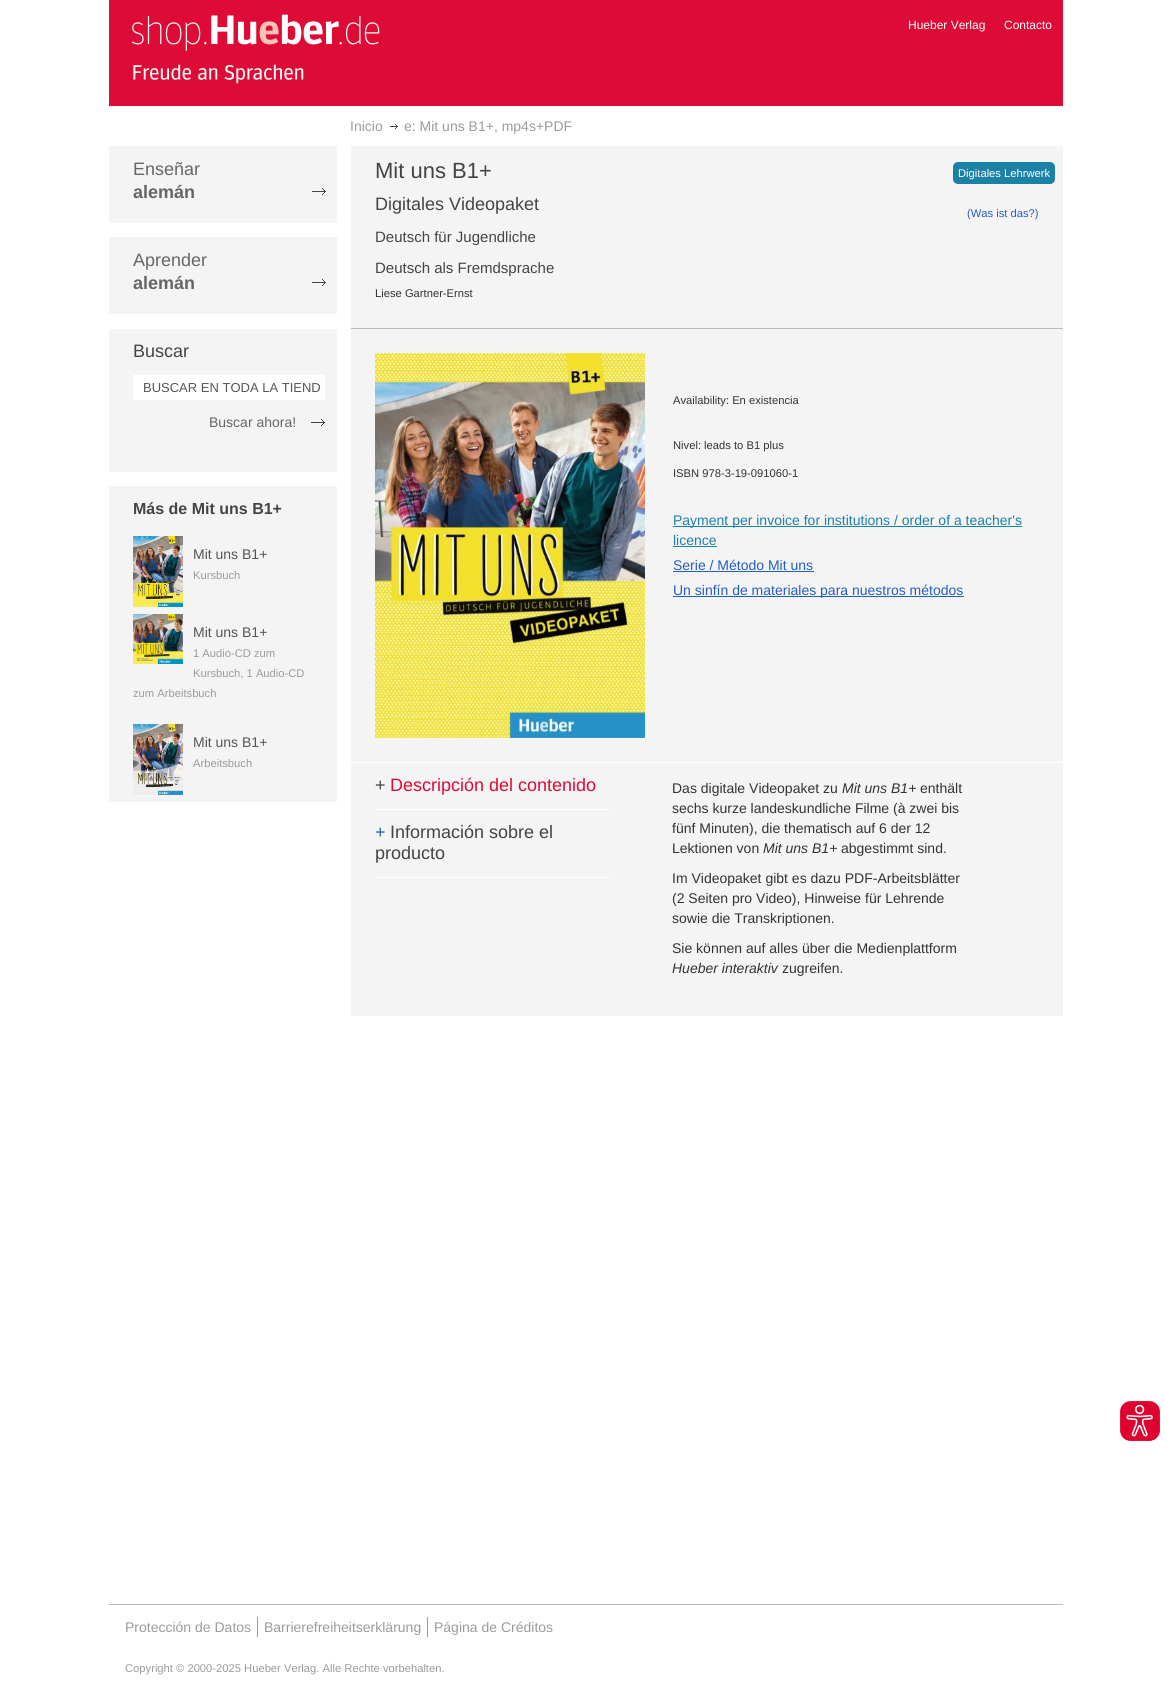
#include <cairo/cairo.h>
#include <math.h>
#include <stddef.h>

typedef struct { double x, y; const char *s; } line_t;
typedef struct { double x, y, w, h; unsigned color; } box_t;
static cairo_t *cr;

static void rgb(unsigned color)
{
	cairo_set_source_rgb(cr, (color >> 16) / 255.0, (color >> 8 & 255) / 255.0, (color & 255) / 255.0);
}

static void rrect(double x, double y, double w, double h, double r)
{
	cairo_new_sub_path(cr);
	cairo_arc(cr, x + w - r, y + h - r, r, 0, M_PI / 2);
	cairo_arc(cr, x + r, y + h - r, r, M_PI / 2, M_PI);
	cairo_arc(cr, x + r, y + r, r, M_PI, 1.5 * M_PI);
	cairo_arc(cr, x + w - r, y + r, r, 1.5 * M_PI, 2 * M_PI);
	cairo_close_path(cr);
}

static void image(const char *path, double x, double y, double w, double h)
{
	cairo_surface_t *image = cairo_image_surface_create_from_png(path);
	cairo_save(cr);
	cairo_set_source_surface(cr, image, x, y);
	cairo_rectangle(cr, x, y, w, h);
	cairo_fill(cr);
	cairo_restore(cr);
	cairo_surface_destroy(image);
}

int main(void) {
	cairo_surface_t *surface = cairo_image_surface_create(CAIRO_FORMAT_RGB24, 1171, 1696);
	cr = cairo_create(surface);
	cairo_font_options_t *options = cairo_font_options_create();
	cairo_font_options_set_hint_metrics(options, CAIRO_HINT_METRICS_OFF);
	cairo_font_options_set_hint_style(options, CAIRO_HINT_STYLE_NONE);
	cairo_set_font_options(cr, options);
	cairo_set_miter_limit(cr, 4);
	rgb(0xffffff);
	cairo_paint(cr);
	rgb(0xdd0b35);
	cairo_rectangle(cr, 109, 0, 954, 106);
	cairo_fill(cr);
	image("img/1.png", 131, 14, 249, 70);
	image("img/2.png", 390, 124, 8, 5);
	rgb(0xf4f4f4);
	cairo_rectangle(cr, 109, 146, 228, 77);
	cairo_fill(cr);
	image("img/3.png", 312, 188, 14, 7);
	cairo_rectangle(cr, 109, 237, 228, 77);
	cairo_fill(cr);
	image("img/3.png", 312, 279, 14, 7);
	cairo_rectangle(cr, 109, 329, 228, 143);
	cairo_fill(cr);
	rgb(0xffffff);
	rrect(133, 375, 192, 25, 1);
	cairo_fill(cr);
	image("img/3.png", 311, 419, 14, 7);
	rgb(0xf4f4f4);
	cairo_rectangle(cr, 109, 486, 228, 316);
	cairo_fill(cr);
	image("img/4.png", 133, 536, 50, 71);
	image("img/5.png", 133, 614, 50, 50);
	image("img/6.png", 133, 724, 50, 71);
	cairo_rectangle(cr, 351, 146, 712, 870);
	cairo_fill(cr);
	rgb(0x1b81a7);
	rrect(953, 162, 102, 22, 5);
	cairo_fill(cr);
	rgb(0xbbbbbb);
	cairo_rectangle(cr, 351, 328, 712, 1);
	cairo_fill(cr);
	rgb(0xffffff);
	cairo_rectangle(cr, 351, 762, 712, 1);
	cairo_fill(cr);
	image("img/7.png", 375, 353, 270, 385);
	{
		static const box_t items[] = {
			{673, 526, 349, 1, 0x1b81a7},
			{673, 546, 44, 1, 0x1b81a7},
			{673, 571, 141, 1, 0x245dc1},
			{673, 596, 291, 1, 0x245dc1},
			{375, 809, 235, 1, 0xffffff},
			{375, 877, 235, 1, 0xffffff},
			{109, 1604, 954, 1, 0xbbbbbb},
			{257, 1617, 1, 20, 0x9b9b9b},
			{427, 1617, 1, 20, 0x9b9b9b},
		};
		for (size_t i = 0; i < sizeof items / sizeof *items; i++) {
			rgb(items[i].color);
			cairo_rectangle(cr, items[i].x, items[i].y, items[i].w, items[i].h);
			cairo_fill(cr);
		}
	}
	image("img/8.png", 1119, 1400, 42, 42);
	cairo_select_font_face(cr, "Liberation Sans", CAIRO_FONT_SLANT_NORMAL, CAIRO_FONT_WEIGHT_NORMAL);
	cairo_set_font_size(cr, 12);
	rgb(0xffffff);
	cairo_move_to(cr, 908, 29);
	cairo_show_text(cr, "Hueber Verlag");
	cairo_move_to(cr, 1004, 29);
	cairo_show_text(cr, "Contacto");
	cairo_set_font_size(cr, 14);
	rgb(0x9b9b9b);
	cairo_move_to(cr, 350, 131);
	cairo_show_text(cr, "Inicio");
	cairo_move_to(cr, 404, 131);
	cairo_show_text(cr, "e: Mit uns B1+, mp4s+PDF");
	cairo_set_font_size(cr, 18);
	rgb(0x666666);
	cairo_move_to(cr, 133, 175);
	cairo_show_text(cr, "Enseñar");
	cairo_select_font_face(cr, "Liberation Sans", CAIRO_FONT_SLANT_NORMAL, CAIRO_FONT_WEIGHT_BOLD);
	cairo_move_to(cr, 133, 198);
	cairo_show_text(cr, "alemán");
	cairo_select_font_face(cr, "Liberation Sans", CAIRO_FONT_SLANT_NORMAL, CAIRO_FONT_WEIGHT_NORMAL);
	cairo_move_to(cr, 133, 266);
	cairo_show_text(cr, "Aprender");
	cairo_select_font_face(cr, "Liberation Sans", CAIRO_FONT_SLANT_NORMAL, CAIRO_FONT_WEIGHT_BOLD);
	cairo_move_to(cr, 133, 289);
	cairo_show_text(cr, "alemán");
	cairo_select_font_face(cr, "Liberation Sans", CAIRO_FONT_SLANT_NORMAL, CAIRO_FONT_WEIGHT_NORMAL);
	rgb(0x444444);
	cairo_move_to(cr, 133, 357);
	cairo_show_text(cr, "Buscar");
	cairo_set_font_size(cr, 13);
	rgb(0x555555);
	cairo_move_to(cr, 143, 392);
	cairo_show_text(cr, "BUSCAR EN TODA LA TIEND");
	cairo_set_font_size(cr, 14);
	rgb(0x666666);
	cairo_move_to(cr, 209, 427);
	cairo_show_text(cr, "Buscar ahora!");
	cairo_select_font_face(cr, "Liberation Sans", CAIRO_FONT_SLANT_NORMAL, CAIRO_FONT_WEIGHT_BOLD);
	cairo_set_font_size(cr, 16);
	rgb(0x444444);
	cairo_move_to(cr, 133, 514);
	cairo_show_text(cr, "Más de Mit uns B1+");
	cairo_select_font_face(cr, "Liberation Sans", CAIRO_FONT_SLANT_NORMAL, CAIRO_FONT_WEIGHT_NORMAL);
	cairo_set_font_size(cr, 14);
	rgb(0x555555);
	cairo_move_to(cr, 193, 559);
	cairo_show_text(cr, "Mit uns B1+");
	cairo_set_font_size(cr, 11.2);
	rgb(0x9b9b9b);
	cairo_move_to(cr, 193, 579);
	cairo_show_text(cr, "Kursbuch");
	cairo_set_font_size(cr, 14);
	rgb(0x555555);
	cairo_move_to(cr, 193, 637);
	cairo_show_text(cr, "Mit uns B1+");
	cairo_set_font_size(cr, 11.2);
	rgb(0x9b9b9b);
	{
		static const line_t items[] = {
			{193, 657, "1 Audio-CD zum"},
			{193, 677, "Kursbuch, 1 Audio-CD"},
			{133, 697, "zum Arbeitsbuch"},
		};
		for (size_t i = 0; i < sizeof items / sizeof *items; i++) {
			cairo_move_to(cr, items[i].x, items[i].y);
			cairo_show_text(cr, items[i].s);
		}
	}
	cairo_set_font_size(cr, 14);
	rgb(0x555555);
	cairo_move_to(cr, 193, 747);
	cairo_show_text(cr, "Mit uns B1+");
	cairo_set_font_size(cr, 11.2);
	rgb(0x9b9b9b);
	cairo_move_to(cr, 193, 767);
	cairo_show_text(cr, "Arbeitsbuch");
	cairo_set_font_size(cr, 22);
	rgb(0x444444);
	cairo_move_to(cr, 375, 178);
	cairo_show_text(cr, "Mit uns B1+");
	cairo_set_font_size(cr, 18);
	cairo_move_to(cr, 375, 210);
	cairo_show_text(cr, "Digitales Videopaket");
	cairo_set_font_size(cr, 15);
	cairo_move_to(cr, 375, 242);
	cairo_show_text(cr, "Deutsch für Jugendliche");
	cairo_move_to(cr, 375, 273);
	cairo_show_text(cr, "Deutsch als Fremdsprache");
	cairo_set_font_size(cr, 11.2);
	rgb(0x333333);
	cairo_move_to(cr, 375, 297);
	cairo_show_text(cr, "Liese Gartner-Ernst");
	rgb(0xffffff);
	cairo_move_to(cr, 958, 177);
	cairo_show_text(cr, "Digitales Lehrwerk");
	rgb(0x245dc1);
	cairo_move_to(cr, 967, 217);
	cairo_show_text(cr, "(Was ist das?)");
	rgb(0x333333);
	{
		static const line_t items[] = {
			{673, 404, "Availability: En existencia"},
			{673, 449, "Nivel: leads to B1 plus"},
			{673, 477, "ISBN 978-3-19-091060-1"},
		};
		for (size_t i = 0; i < sizeof items / sizeof *items; i++) {
			cairo_move_to(cr, items[i].x, items[i].y);
			cairo_show_text(cr, items[i].s);
		}
	}
	cairo_set_font_size(cr, 14);
	rgb(0x1b81a7);
	cairo_move_to(cr, 673, 525);
	cairo_show_text(cr, "Payment per invoice for institutions / order of a teacher's");
	cairo_move_to(cr, 673, 545);
	cairo_show_text(cr, "licence");
	rgb(0x245dc1);
	cairo_move_to(cr, 673, 570);
	cairo_show_text(cr, "Serie / Método Mit uns");
	cairo_move_to(cr, 673, 595);
	cairo_show_text(cr, "Un sinfín de materiales para nuestros métodos");
	cairo_set_font_size(cr, 18);
	rgb(0x444444);
	cairo_move_to(cr, 375, 791);
	cairo_show_text(cr, "+");
	rgb(0xdd0b35);
	cairo_move_to(cr, 390, 791);
	cairo_show_text(cr, "Descripción del contenido");
	rgb(0x245dc1);
	cairo_move_to(cr, 375, 838);
	cairo_show_text(cr, "+");
	rgb(0x444444);
	cairo_move_to(cr, 390, 838);
	cairo_show_text(cr, "Información sobre el");
	cairo_move_to(cr, 375, 859);
	cairo_show_text(cr, "producto");
	cairo_set_font_size(cr, 14);
	rgb(0x333333);
	cairo_move_to(cr, 672, 793);
	cairo_show_text(cr, "Das digitale Videopaket zu");
	cairo_select_font_face(cr, "Liberation Sans", CAIRO_FONT_SLANT_ITALIC, CAIRO_FONT_WEIGHT_NORMAL);
	cairo_move_to(cr, 842, 793);
	cairo_show_text(cr, "Mit uns B1+");
	cairo_select_font_face(cr, "Liberation Sans", CAIRO_FONT_SLANT_NORMAL, CAIRO_FONT_WEIGHT_NORMAL);
	{
		static const line_t items[] = {
			{920, 793, "enthält"},
			{672, 813, "sechs kurze landeskundliche Filme (à zwei bis"},
			{672, 833, "fünf Minuten), die thematisch auf 6 der 12"},
			{672, 853, "Lektionen von"},
		};
		for (size_t i = 0; i < sizeof items / sizeof *items; i++) {
			cairo_move_to(cr, items[i].x, items[i].y);
			cairo_show_text(cr, items[i].s);
		}
	}
	cairo_select_font_face(cr, "Liberation Sans", CAIRO_FONT_SLANT_ITALIC, CAIRO_FONT_WEIGHT_NORMAL);
	cairo_move_to(cr, 763, 853);
	cairo_show_text(cr, "Mit uns B1+");
	cairo_select_font_face(cr, "Liberation Sans", CAIRO_FONT_SLANT_NORMAL, CAIRO_FONT_WEIGHT_NORMAL);
	{
		static const line_t items[] = {
			{841, 853, "abgestimmt sind."},
			{672, 883, "Im Videopaket gibt es dazu PDF-Arbeitsblätter"},
			{672, 903, "(2 Seiten pro Video), Hinweise für Lehrende"},
			{672, 923, "sowie die Transkriptionen."},
			{672, 953, "Sie können auf alles über die Medienplattform"},
		};
		for (size_t i = 0; i < sizeof items / sizeof *items; i++) {
			cairo_move_to(cr, items[i].x, items[i].y);
			cairo_show_text(cr, items[i].s);
		}
	}
	cairo_select_font_face(cr, "Liberation Sans", CAIRO_FONT_SLANT_ITALIC, CAIRO_FONT_WEIGHT_NORMAL);
	cairo_move_to(cr, 672, 973);
	cairo_show_text(cr, "Hueber interaktiv");
	cairo_select_font_face(cr, "Liberation Sans", CAIRO_FONT_SLANT_NORMAL, CAIRO_FONT_WEIGHT_NORMAL);
	cairo_move_to(cr, 782, 973);
	cairo_show_text(cr, "zugreifen.");
	rgb(0x9b9b9b);
	{
		static const line_t items[] = {
			{125, 1632, "Protección de Datos"},
			{264, 1632, "Barrierefreiheitserklärung"},
			{434, 1632, "Página de Créditos"},
		};
		for (size_t i = 0; i < sizeof items / sizeof *items; i++) {
			cairo_move_to(cr, items[i].x, items[i].y);
			cairo_show_text(cr, items[i].s);
		}
	}
	cairo_set_font_size(cr, 11.2);
	cairo_move_to(cr, 125, 1672);
	cairo_show_text(cr, "Copyright © 2000-2025 Hueber Verlag. Alle Rechte vorbehalten.");
	cairo_surface_write_to_png(surface, "page.png");
	cairo_font_options_destroy(options);
	cairo_destroy(cr);
	cairo_surface_destroy(surface);
	return 0;
}
